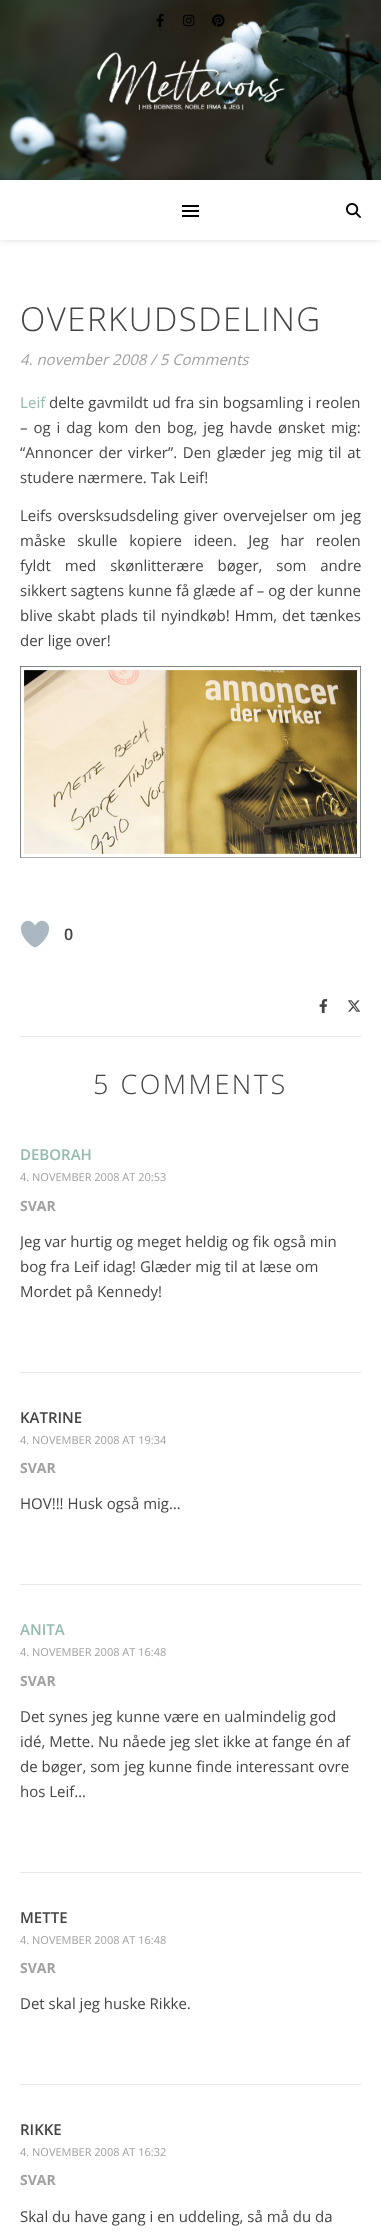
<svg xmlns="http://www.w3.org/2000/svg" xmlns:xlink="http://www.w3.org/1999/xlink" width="381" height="2232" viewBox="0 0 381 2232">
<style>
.cls-1{font:300 33px Open Sans;letter-spacing:1.5px;fill:#444444}
.cls-2{font:italic 15px Open Sans;fill:#a1a1a1}
.cls-3{font:15px Noto Sans;fill:#95bbb1}
.cls-4{font:15px Open Sans;fill:#95bbb1}
.cls-5{font:15px Open Sans;fill:#444444}
.cls-6{font:600 16px Open Sans;fill:#444444}
.cls-7{font:300 27px Open Sans;letter-spacing:2.5px;fill:#444444}
.cls-8{font:600 15px Open Sans;fill:#95bbb1}
.cls-9{font:11px Open Sans;fill:#a1a1a1}
.cls-10{font:bold 14px Open Sans;fill:#a1a1a1}
.cls-11{font:600 15px Open Sans;fill:#444444}
</style>
<defs>
<clipPath id="clip1"><path d="M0 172H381V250H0ZM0 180H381V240H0Z" clip-rule="evenodd"/></clipPath>
<clipPath id="clip2"><rect x="20" y="1144" width="341" height="173"/></clipPath>
</defs>
<rect width="100%" height="100%" fill="#ffffff"/>
<image xlink:href="image0.png" x="0" y="0" width="381" height="180"/>
<image xlink:href="image1.png" x="156" y="14" width="8" height="13"/>
<image xlink:href="image2.png" x="183" y="14" width="12" height="13"/>
<image xlink:href="image3.png" x="212" y="14" width="13" height="13"/>
<image xlink:href="image4.png" x="96" y="52" width="189" height="59"/>
<g clip-path="url(#clip1)">
<rect fill="#000000" fill-opacity="0.1" filter="blur(2.5px)" x="0" y="181" width="381" height="60"/>
</g>
<rect fill="#000000" x="182" y="205" width="17" height="2"/>
<rect fill="#000000" x="182" y="210" width="17" height="2"/>
<rect fill="#000000" x="182" y="215" width="17" height="2"/>
<image xlink:href="image5.png" x="346" y="203" width="15" height="15"/>
<image xlink:href="image6.png" x="20" y="666" width="341" height="192"/>
<image xlink:href="image7.png" x="20" y="920" width="30" height="28"/>
<rect fill="#e8e8e8" x="20" y="1036" width="341" height="1"/>
<image xlink:href="image8.png" x="319" y="999" width="9" height="14"/>
<image xlink:href="image9.png" x="347" y="1000" width="14" height="12"/>
<rect fill="#e8e8e8" x="20" y="1372" width="341" height="1"/>
<rect fill="#e8e8e8" x="20" y="1584" width="341" height="1"/>
<rect fill="#e8e8e8" x="20" y="1872" width="341" height="1"/>
<rect fill="#e8e8e8" x="20" y="2084" width="341" height="1"/>
<text class="cls-1" x="20" y="331">OVERKUDSDELING</text>
<text class="cls-2" x="20" y="365">4. november 2008 / 5 Comments</text>
<text class="cls-3" x="20" y="408">L</text>
<text class="cls-4" x="28" y="408">eif</text>
<text class="cls-5" x="49" y="408" word-spacing="0.25">delte gavmildt ud fra sin bogsamling i reolen</text>
<text class="cls-5"><tspan x="20" y="433" word-spacing="2">– og i dag kom den bog, jeg havde ønsket mig:</tspan><tspan x="20" y="458" word-spacing="1.75">“Annoncer der virker”. Den glæder jeg mig til at</tspan><tspan x="20" y="483">studere nærmere. Tak Leif!</tspan></text>
<text class="cls-5"><tspan x="20" y="521" word-spacing="1.25">Leifs oversksudsdeling giver overvejelser om jeg</tspan><tspan x="20" y="546" word-spacing="7.75">måske skulle kopiere ideen. Jeg har reolen</tspan><tspan x="20" y="571" word-spacing="10">fyldt med skønlitterære bøger, som andre</tspan><tspan x="20" y="596">sikkert sagtens kunne få glæde af – og der kunne</tspan><tspan x="20" y="621" word-spacing="1">blive skabt plads til nyindkøb! Hmm, det tænkes</tspan><tspan x="20" y="646">der lige over!</tspan></text>
<text class="cls-6" x="64" y="940">0</text>
<text class="cls-7" x="93" y="1094">5 COMMENTS</text>
<text class="cls-8" x="20" y="1160">DEBORAH</text>
<text class="cls-9" x="20" y="1181">4. NOVEMBER 2008 AT 20:53</text>
<text class="cls-10" x="20" y="1211">SVAR</text>
<g clip-path="url(#clip2)">
<text class="cls-5" x="20" y="1247">Jeg var hurtig og meget heldig og fik også min</text>
</g>
<text class="cls-5"><tspan x="20" y="1272">bog fra Leif idag! Glæder mig til at læse om</tspan><tspan x="20" y="1297">Mordet på Kennedy!</tspan></text>
<text class="cls-11" x="20" y="1423">KATRINE</text>
<text class="cls-9" x="20" y="1444">4. NOVEMBER 2008 AT 19:34</text>
<text class="cls-10" x="20" y="1473">SVAR</text>
<text class="cls-5" x="20" y="1509">HOV!!! Husk også mig…</text>
<text class="cls-8" x="20" y="1635">ANITA</text>
<text class="cls-9" x="20" y="1656">4. NOVEMBER 2008 AT 16:48</text>
<text class="cls-10" x="20" y="1686">SVAR</text>
<text class="cls-5"><tspan x="20" y="1722">Det synes jeg kunne være en ualmindelig god</tspan><tspan x="20" y="1747">idé, Mette. Nu nåede jeg slet ikke at fange én af</tspan><tspan x="20" y="1772">de bøger, som jeg kunne finde interessant ovre</tspan><tspan x="20" y="1797">hos Leif…</tspan></text>
<text class="cls-11" x="20" y="1923">METTE</text>
<text class="cls-9" x="20" y="1944">4. NOVEMBER 2008 AT 16:48</text>
<text class="cls-10" x="20" y="1973">SVAR</text>
<text class="cls-5" x="20" y="2009">Det skal jeg huske Rikke.</text>
<text class="cls-11" x="20" y="2135">RIKKE</text>
<text class="cls-9" x="20" y="2156">4. NOVEMBER 2008 AT 16:32</text>
<text class="cls-10" x="20" y="2185">SVAR</text>
<text class="cls-5" x="20" y="2222">Skal du have gang i en uddeling, så må du da</text>
</svg>
